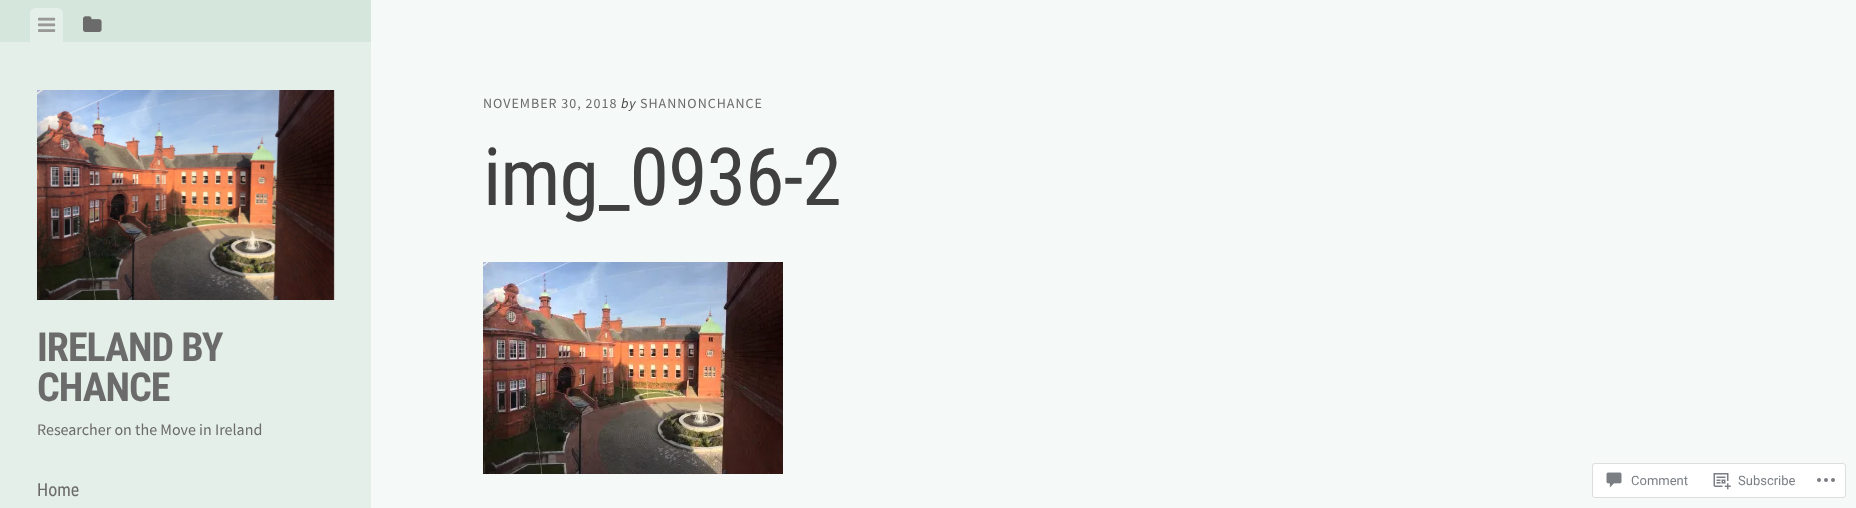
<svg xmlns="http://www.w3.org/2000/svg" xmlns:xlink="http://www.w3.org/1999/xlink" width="1856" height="508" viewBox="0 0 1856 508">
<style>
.cls-1{font:14px Source Sans Pro;letter-spacing:1px;fill:#6b6b6b}
.cls-2{font:italic 14px Source Sans Pro;letter-spacing:1px;fill:#404040}
.cls-3{font:80px Roboto Condensed;letter-spacing:-1px;fill:#404040}
.cls-4{font:bold 40px Roboto Condensed;letter-spacing:-1px;fill:#6b6b6b}
.cls-5{font:16px Source Sans Pro;fill:#6b6b6b}
.cls-6{font:18px Roboto Condensed;fill:#6b6b6b}
.cls-7{font:13px Roboto;fill:#7b7f84}
</style>
<rect width="100%" height="100%" fill="#f5f9f7"/>
<image xlink:href="image0.png" x="483" y="262" width="300" height="212"/>
<rect fill="#e5efea" x="0" y="42" width="371" height="466"/>
<rect fill="#d5e6dd" x="0" y="0" width="371" height="42"/>
<path fill="#e5efea" d="M36 8H57C60.5 8 63 10.5 63 14V42H30V14C30 10.5 32.5 8 36 8Z"/>
<image xlink:href="image1.png" x="38" y="17" width="18" height="15"/>
<image xlink:href="image2.png" x="83" y="16" width="19" height="16"/>
<image xlink:href="image3.png" x="37" y="90" width="298" height="210"/>
<rect fill="#ffffff" stroke="#dddddf" x="1592.5" y="463.5" width="253" height="34" rx="2.5"/>
<image xlink:href="image4.png" x="1606" y="472" width="16" height="16"/>
<image xlink:href="image5.png" x="1713" y="473" width="18" height="17"/>
<image xlink:href="image6.png" x="1817" y="478" width="18" height="4"/>
<text class="cls-1" x="483" y="108">NOVEMBER 30, 2018</text>
<text class="cls-2" x="621" y="108">by</text>
<text class="cls-1" x="640" y="108">SHANNONCHANCE</text>
<text class="cls-3" x="483" y="205">img_0936-2</text>
<text class="cls-4"><tspan x="37" y="361">IRELAND BY</tspan><tspan x="37" y="401">CHANCE</tspan></text>
<text class="cls-5" x="37" y="435">Researcher on the Move in Ireland</text>
<text class="cls-6" x="37" y="496">Home</text>
<text class="cls-7" x="1631" y="485">Comment</text>
<text class="cls-7" x="1738" y="485">Subscribe</text>
</svg>
